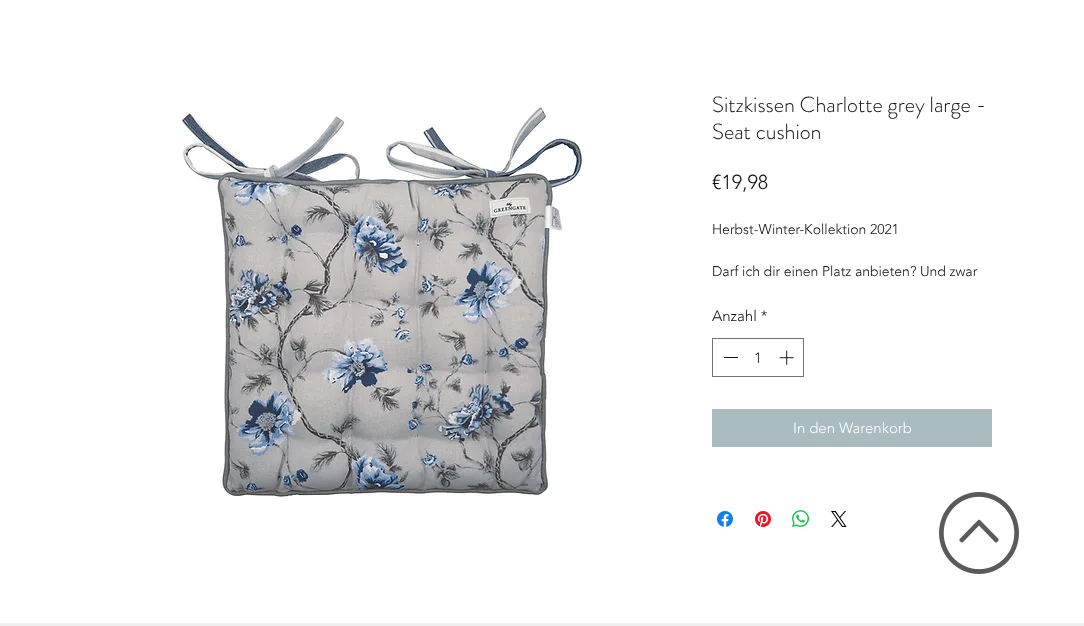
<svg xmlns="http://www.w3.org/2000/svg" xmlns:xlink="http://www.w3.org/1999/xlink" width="1084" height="626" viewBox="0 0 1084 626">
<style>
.cls-1{font:300 22px 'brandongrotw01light';fill:#121212}
.cls-2{font:300 20px 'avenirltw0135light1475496';fill:#121212}
.cls-3{font:300 14px 'avenirltw0135light1475496';fill:#121212}
.cls-4{font:300 15px 'avenirltw0135light1475496';fill:#121212}
.cls-5{font:300 15px 'avenirltw0135light1475496';fill:#ffffff}
</style>
<rect width="100%" height="100%" fill="#ffffff"/>
<image xlink:href="image0.png" x="180" y="107" width="404" height="393"/>
<rect fill="none" stroke="#717171" x="712.5" y="338.5" width="91" height="38"/>
<rect fill="#121212" x="724" y="357" width="14" height="1"/>
<image xlink:href="image1.png" x="779" y="350" width="15" height="15"/>
<rect fill="#aabcbf" x="712" y="409" width="280" height="38"/>
<image xlink:href="image2.png" x="717" y="511" width="16" height="16"/>
<image xlink:href="image3.png" x="755" y="511" width="16" height="16"/>
<image xlink:href="image4.png" x="792" y="510" width="17" height="17"/>
<image xlink:href="image5.png" x="831" y="511" width="16" height="16"/>
<image xlink:href="image6.png" x="939" y="492" width="80" height="82"/>
<rect fill="#f0f0f0" x="0" y="623" width="1084" height="3"/>
<text class="cls-1"><tspan x="712" y="112">Sitzkissen Charlotte grey large -</tspan><tspan x="712" y="139">Seat cushion</tspan></text>
<text class="cls-2" x="712" y="189">€19,98</text>
<text class="cls-3" x="712" y="234">Herbst-Winter-Kollektion 2021</text>
<text class="cls-3" x="712" y="276">Darf ich dir einen Platz anbieten? Und zwar</text>
<text class="cls-4" x="712" y="321">Anzahl *</text>
<text class="cls-4" x="754" y="363">1</text>
<text class="cls-5" x="793" y="433">In den Warenkorb</text>
</svg>
